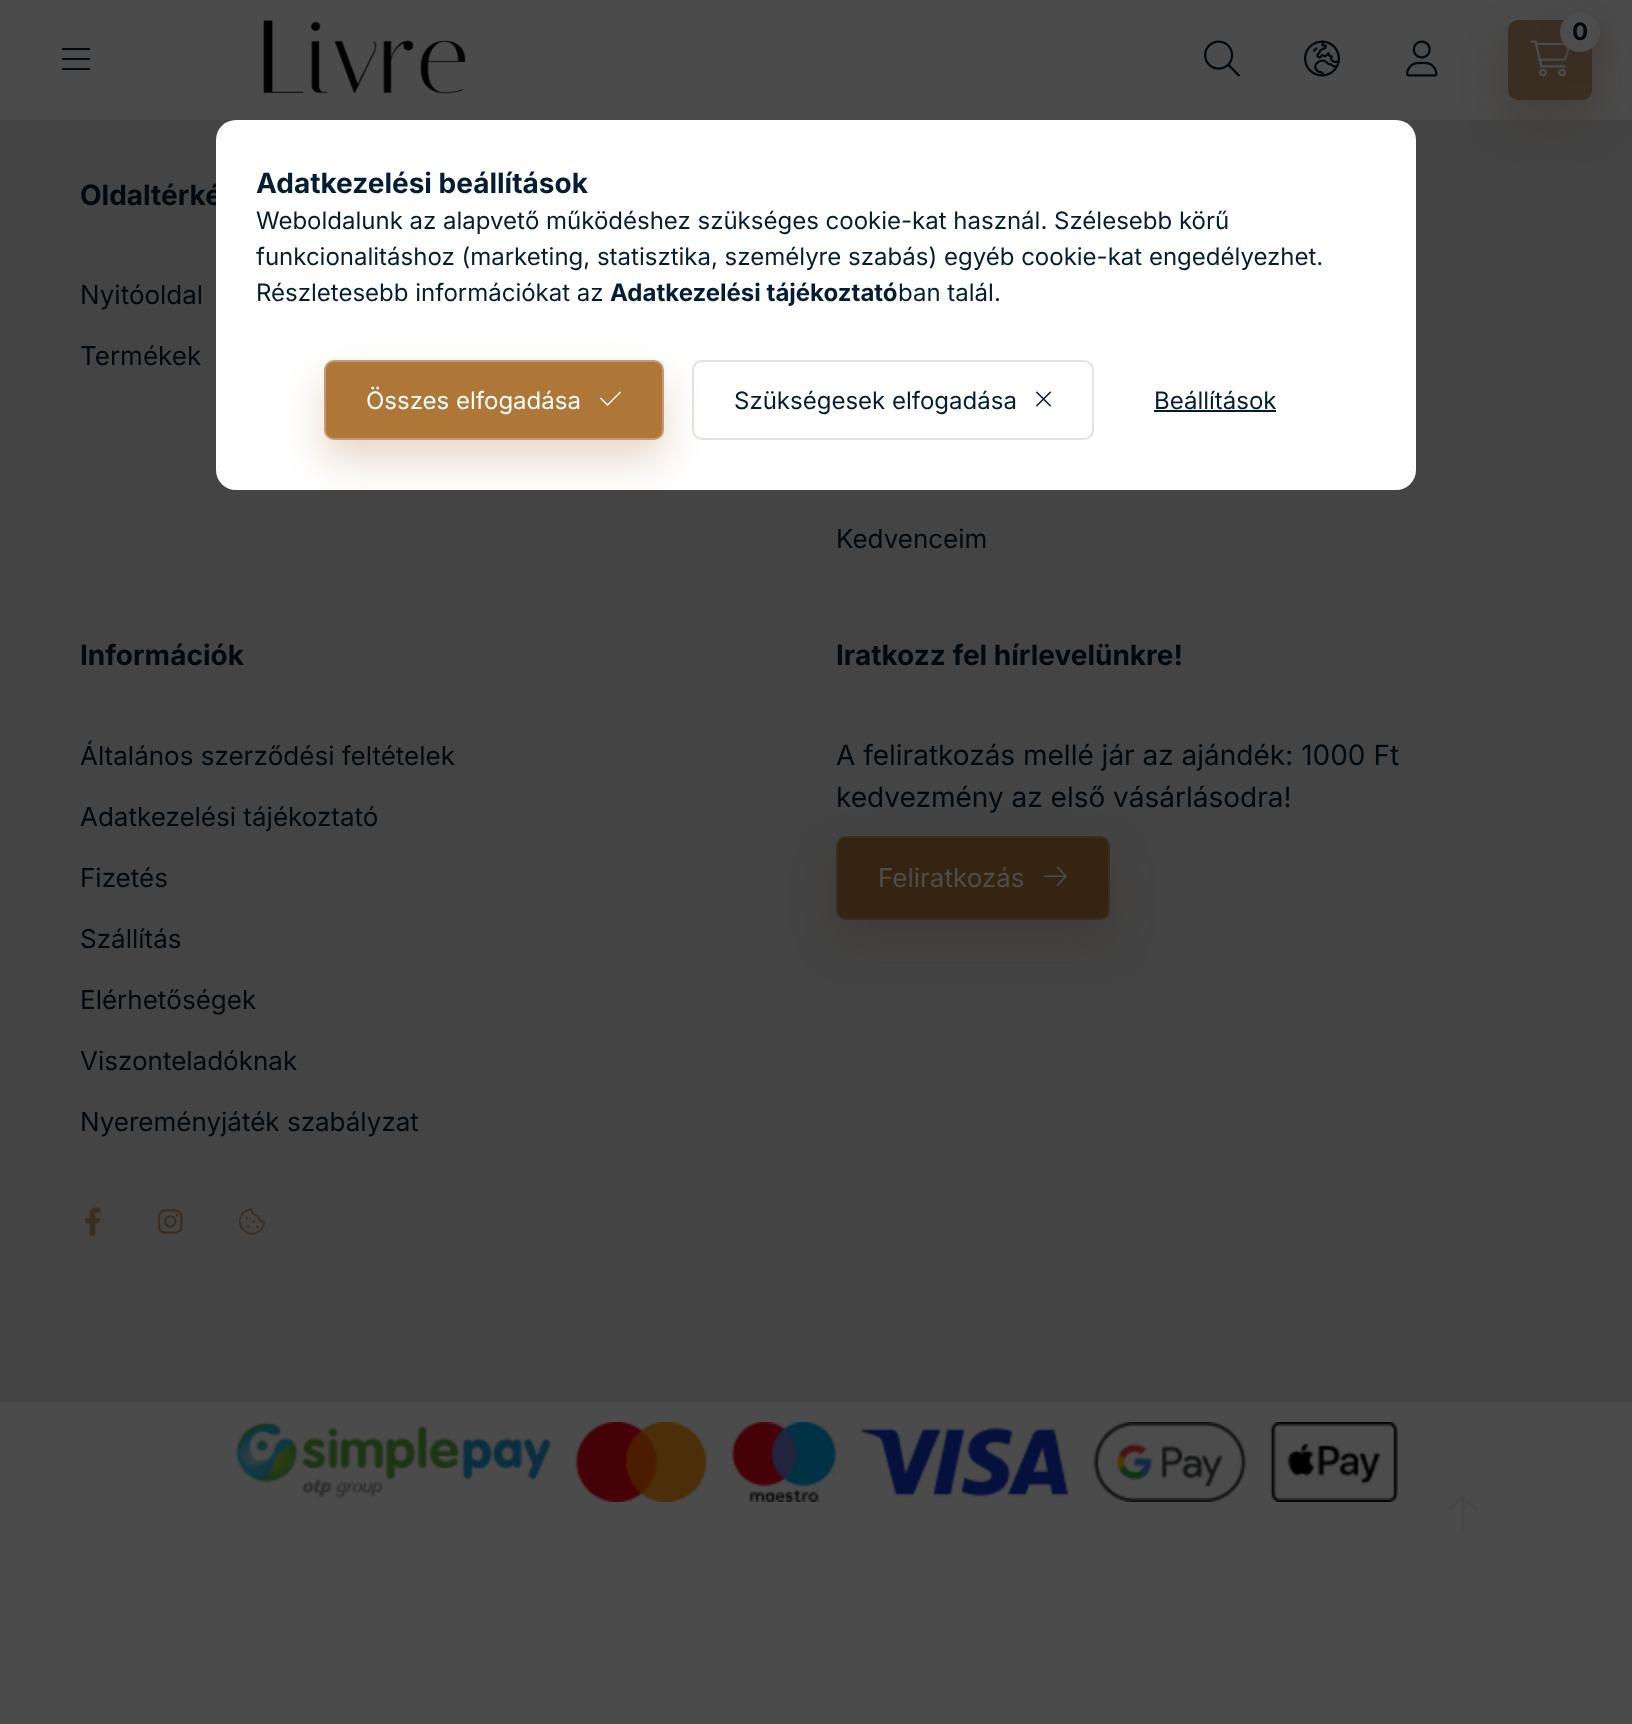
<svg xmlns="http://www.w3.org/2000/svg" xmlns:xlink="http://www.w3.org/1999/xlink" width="1632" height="1724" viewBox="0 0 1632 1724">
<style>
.cls-1{font:bold 24px Inter;fill:#02090f}
.cls-2{font:bold 28px Inter;fill:#02090f}
.cls-3{font:26px Inter;fill:#02090f}
.cls-4{font:28px Inter;fill:#02090f}
.cls-5{font:26px Inter;fill:#4d4d4d}
.cls-6{font:bold 28px Inter;fill:#051d33}
.cls-7{font:24px Inter;fill:#051d33}
.cls-8{font:bold 24px Inter;fill:#051d33}
.cls-9{font:24px Inter;fill:#ffffff}
</style>
<defs>
<clipPath id="clip1"><rect x="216" y="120" width="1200" height="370" rx="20"/></clipPath>
</defs>
<rect width="100%" height="100%" fill="#4b4b4b"/>
<rect fill="#02090f" x="62" y="48" width="28" height="2"/>
<rect fill="#02090f" x="62" y="58" width="28" height="2"/>
<rect fill="#02090f" x="62" y="68" width="28" height="2"/>
<image xlink:href="image0.png" x="263" y="20" width="203" height="74"/>
<rect fill="#444444" x="0" y="120" width="1632" height="1282"/>
<rect fill="#3a2e23" fill-opacity="0.4" filter="blur(20px)" x="1508" y="40" width="84" height="80" rx="10"/>
<rect fill="#3a2e23" x="1508" y="20" width="84" height="80" rx="10"/>
<image xlink:href="image1.png" x="1530" y="40" width="40" height="37"/>
<rect fill="#3a2e23" fill-opacity="0.4" filter="blur(10px)" x="1560" y="22" width="40" height="40" rx="20"/>
<circle fill="#4d4d4d" cx="1580" cy="32" r="20"/>
<image xlink:href="image2.png" x="1204" y="40" width="36" height="37"/>
<image xlink:href="image3.png" x="1304" y="40" width="36" height="37"/>
<image xlink:href="image4.png" x="1406" y="40" width="32" height="37"/>
<image xlink:href="image5.png" x="85" y="1207" width="16" height="29"/>
<image xlink:href="image6.png" x="158" y="1209" width="25" height="25"/>
<image xlink:href="image7.png" x="238" y="1208" width="28" height="27"/>
<rect fill="#3a2e23" fill-opacity="0.4" filter="blur(20px)" x="836" y="856" width="274" height="84" rx="10"/>
<rect fill="#342411" stroke="#3a2e23" stroke-width="2" x="837" y="837" width="272" height="82" rx="9"/>
<image xlink:href="image8.png" x="1044" y="866" width="23" height="20"/>
<image xlink:href="image9.png" x="235" y="1422" width="1163" height="80"/>
<image xlink:href="image12.png" x="1448" y="1495" width="30" height="36"/>
<text class="cls-1" x="1572" y="40">0</text>
<text class="cls-2" x="80" y="205">Oldaltérké</text>
<text class="cls-3" x="80" y="304">Nyitóoldal</text>
<text class="cls-3" x="80" y="365">Termékek</text>
<text class="cls-3" x="836" y="548">Kedvenceim</text>
<text class="cls-2" x="80" y="665">Információk</text>
<text class="cls-3" x="80" y="765">Általános szerződési feltételek</text>
<text class="cls-3" x="80" y="826">Adatkezelési tájékoztató</text>
<text class="cls-3" x="80" y="887">Fizetés</text>
<text class="cls-3" x="80" y="948">Szállítás</text>
<text class="cls-3" x="80" y="1009">Elérhetőségek</text>
<text class="cls-3" x="80" y="1070">Viszonteladóknak</text>
<text class="cls-3" x="80" y="1131">Nyereményjáték szabályzat</text>
<text class="cls-2" x="836" y="665">Iratkozz fel hírlevelünkre!</text>
<text class="cls-4"><tspan x="836" y="765">A feliratkozás mellé jár az ajándék: 1000 Ft</tspan><tspan x="836" y="807">kedvezmény az első vásárlásodra!</tspan></text>
<text class="cls-5" x="878" y="887">Feliratkozás</text>
<rect fill="#ffffff" x="216" y="120" width="1200" height="370" rx="20"/>
<text class="cls-6" x="256" y="193">Adatkezelési beállítások</text>
<text class="cls-7"><tspan x="256" y="229">Weboldalunk az alapvető működéshez szükséges cookie-kat használ. Szélesebb körű</tspan><tspan x="256" y="265">funkcionalitáshoz (marketing, statisztika, személyre szabás) egyéb cookie-kat engedélyezhet.</tspan><tspan x="256" y="301">Részletesebb információkat az</tspan></text>
<text class="cls-8" x="610" y="301">Adatkezelési tájékoztató</text>
<text class="cls-7" x="898" y="301">ban talál.</text>
<g clip-path="url(#clip1)">
<rect fill="#c29a74" fill-opacity="0.4" filter="blur(20px)" x="324" y="380" width="340" height="80" rx="10"/>
</g>
<rect fill="#ae7737" stroke="#c29a74" stroke-width="2" x="325" y="361" width="338" height="78" rx="9"/>
<text class="cls-9" x="366" y="409">Összes elfogadása</text>
<image xlink:href="image10.png" x="600" y="391" width="21" height="15"/>
<rect fill="none" stroke="#e1e1e1" stroke-width="2" x="693" y="361" width="400" height="78" rx="9"/>
<text class="cls-7" x="734" y="409">Szükségesek elfogadása</text>
<image xlink:href="image11.png" x="1036" y="391" width="15" height="16"/>
<text class="cls-7" x="1154" y="409">Beállítások</text>
<rect fill="#051d33" x="1154" y="410" width="122" height="2"/>
</svg>
